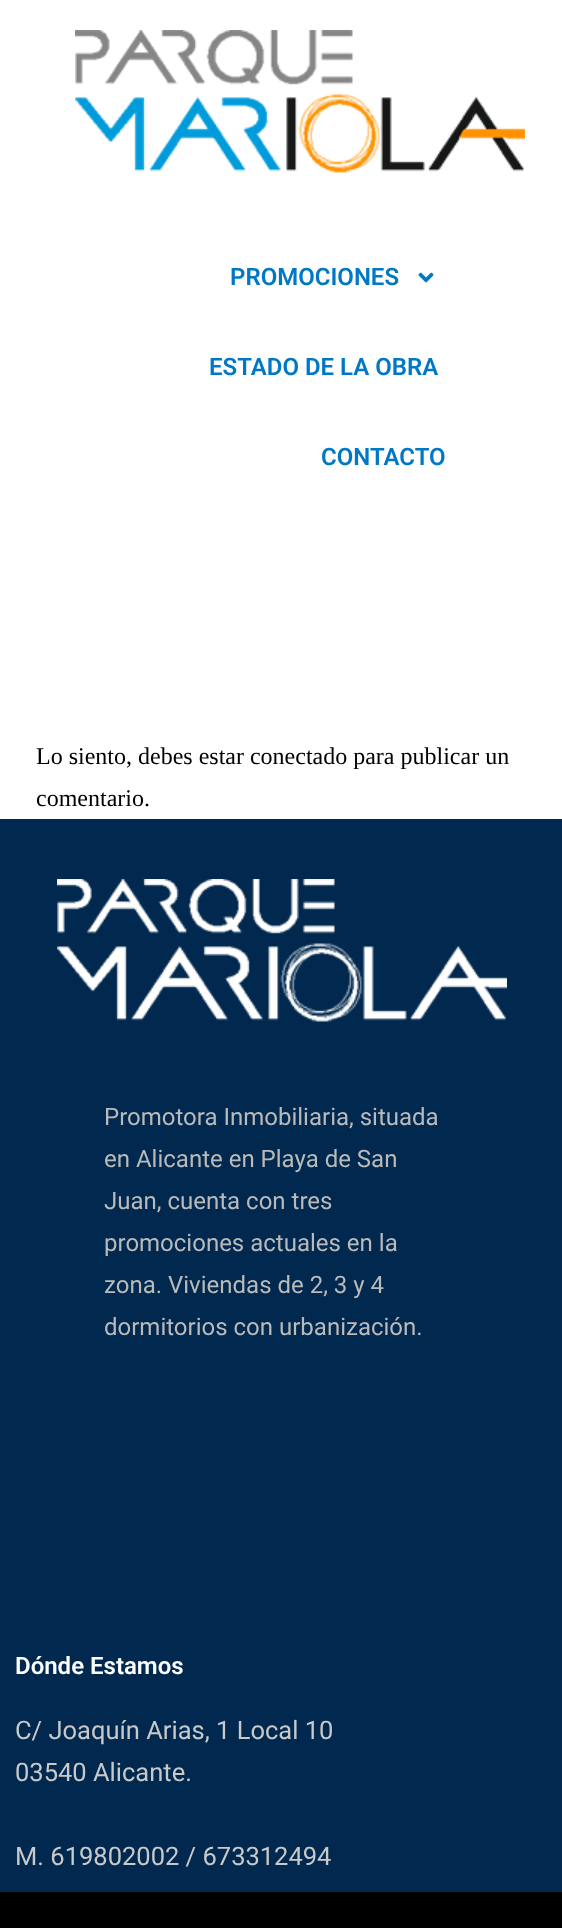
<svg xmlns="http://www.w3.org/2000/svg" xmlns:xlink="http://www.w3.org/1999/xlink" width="562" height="1928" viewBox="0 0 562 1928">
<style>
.cls-1{font:600 24px Roboto;fill:#0178c5}
.cls-2{font:24px Liberation Serif;fill:#000000}
.cls-3{font:24px Roboto;fill:#bababa}
.cls-4{font:600 24px Roboto;fill:#ffffff}
.cls-5{font:25.5px Roboto;fill:#c9c9c9}
</style>
<rect width="100%" height="100%" fill="#ffffff"/>
<image xlink:href="image0.png" x="75" y="30" width="450" height="143"/>
<image xlink:href="image1.png" x="418" y="272" width="16" height="11"/>
<rect fill="#01284e" x="0" y="819" width="562" height="1073"/>
<image xlink:href="image2.png" x="57" y="879" width="450" height="143"/>
<rect fill="#000000" x="0" y="1892" width="562" height="36"/>
<text class="cls-1" x="230" y="285">PROMOCIONES</text>
<text class="cls-1" x="209" y="375">ESTADO DE LA OBRA</text>
<text class="cls-1" x="321" y="465">CONTACTO</text>
<text class="cls-2"><tspan x="36" y="764">Lo siento, debes estar conectado para publicar un</tspan><tspan x="36" y="806">comentario.</tspan></text>
<text class="cls-3"><tspan x="104" y="1125">Promotora Inmobiliaria, situada</tspan><tspan x="104" y="1167">en Alicante en Playa de San</tspan><tspan x="104" y="1209">Juan, cuenta con tres</tspan><tspan x="104" y="1251">promociones actuales en la</tspan><tspan x="104" y="1293">zona. Viviendas de 2, 3 y 4</tspan><tspan x="104" y="1335">dormitorios con urbanización.</tspan></text>
<text class="cls-4" x="15" y="1674">Dónde Estamos</text>
<text class="cls-5"><tspan x="15" y="1739">C/ Joaquín Arias, 1 Local 10</tspan><tspan x="15" y="1781">03540 Alicante.</tspan></text>
<text class="cls-5" x="15" y="1865">M. 619802002 / 673312494</text>
</svg>
